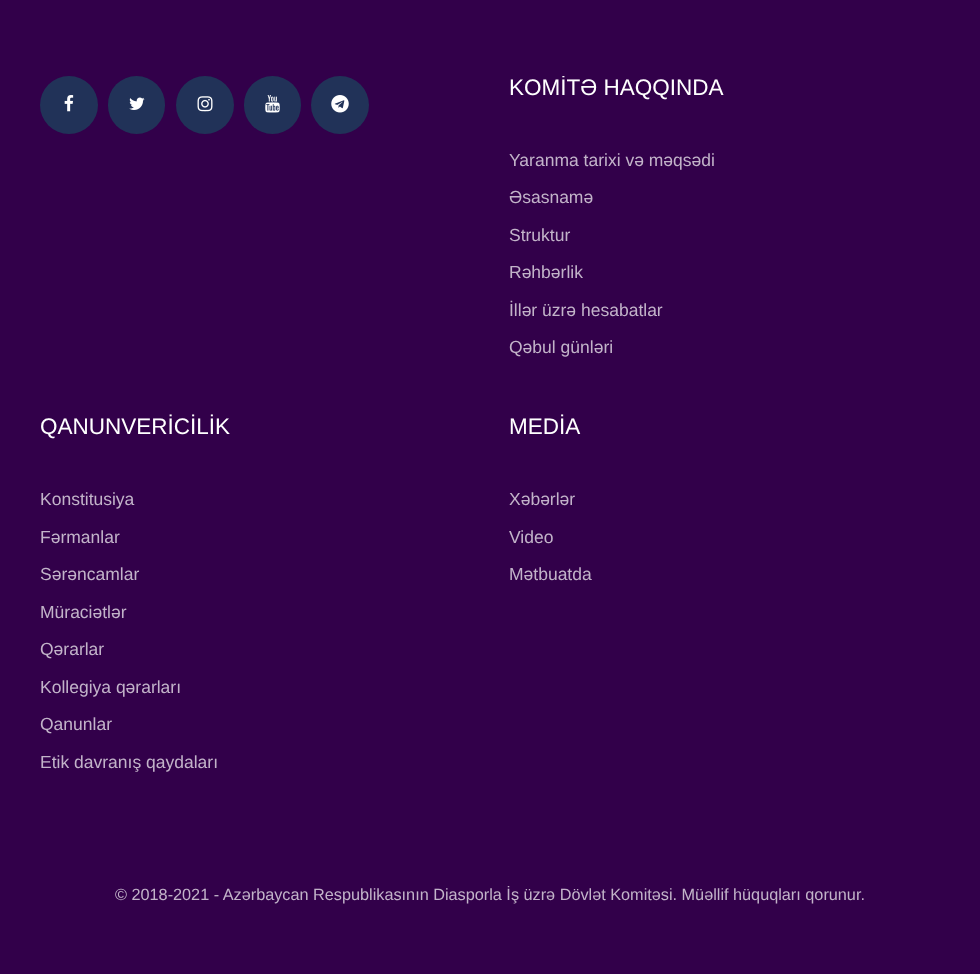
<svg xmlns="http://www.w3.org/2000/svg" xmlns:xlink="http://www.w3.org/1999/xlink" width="980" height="974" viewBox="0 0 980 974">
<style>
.cls-1{font:22.5px Liberation Sans;fill:#ffffff}
.cls-2{font:17.5px Liberation Sans;fill:#c2b3c9}
.cls-3{font:16.25px Liberation Sans;fill:#c2b3c9}
</style>
<defs>
<clipPath id="clip1"><rect x="0" y="76" width="980" height="754"/></clipPath>
</defs>
<rect width="100%" height="100%" fill="#32004a"/>
<circle fill="#213258" cx="69" cy="105" r="29"/>
<image xlink:href="image0.png" x="64" y="95" width="10" height="17"/>
<rect fill="#213258" x="108" y="76" width="57" height="58" rx="28.5"/>
<image xlink:href="image1.png" x="129" y="97" width="16" height="13"/>
<circle fill="#213258" cx="205" cy="105" r="29"/>
<image xlink:href="image2.png" x="197" y="96" width="16" height="16"/>
<rect fill="#213258" x="244" y="76" width="57" height="58" rx="28.5"/>
<image xlink:href="image3.png" x="265" y="95" width="15" height="18"/>
<circle fill="#213258" cx="340" cy="105" r="29"/>
<image xlink:href="image4.png" x="331" y="95" width="18" height="18"/>
<g clip-path="url(#clip1)">
<text class="cls-1" x="509" y="95">KOMİTƏ HAQQINDA</text>
</g>
<text class="cls-2" x="509" y="166">Yaranma tarixi və məqsədi</text>
<text class="cls-2" x="509" y="203">Əsasnamə</text>
<text class="cls-2" x="509" y="241">Struktur</text>
<text class="cls-2" x="509" y="278">Rəhbərlik</text>
<text class="cls-2" x="509" y="316">İllər üzrə hesabatlar</text>
<text class="cls-2" x="509" y="353">Qəbul günləri</text>
<text class="cls-1" x="40" y="434">QANUNVERİCİLİK</text>
<text class="cls-2" x="40" y="505">Konstitusiya</text>
<text class="cls-2" x="40" y="543">Fərmanlar</text>
<text class="cls-2" x="40" y="580">Sərəncamlar</text>
<text class="cls-2" x="40" y="618">Müraciətlər</text>
<text class="cls-2" x="40" y="655">Qərarlar</text>
<text class="cls-2" x="40" y="693">Kollegiya qərarları</text>
<text class="cls-2" x="40" y="730">Qanunlar</text>
<text class="cls-2" x="40" y="768">Etik davranış qaydaları</text>
<text class="cls-1" x="509" y="434">MEDİA</text>
<text class="cls-2" x="509" y="505">Xəbərlər</text>
<text class="cls-2" x="509" y="543">Video</text>
<text class="cls-2" x="509" y="580">Mətbuatda</text>
<text class="cls-3" x="115" y="900">© 2018-2021 - Azərbaycan Respublikasının Diasporla İş üzrə Dövlət Komitəsi. Müəllif hüquqları qorunur.</text>
</svg>
